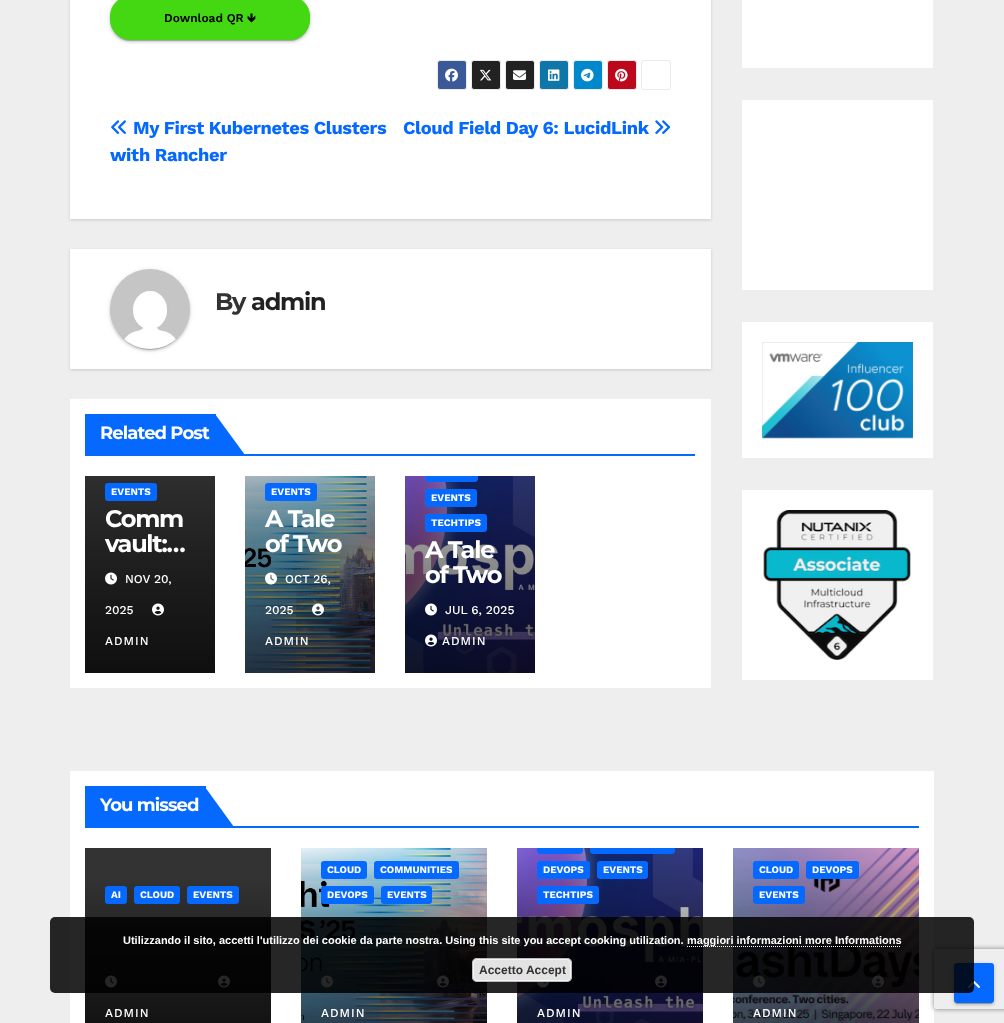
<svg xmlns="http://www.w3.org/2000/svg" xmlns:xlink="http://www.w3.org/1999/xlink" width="1004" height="1023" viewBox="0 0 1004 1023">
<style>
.cls-1{font:600 12px Work Sans;fill:#000000}
.cls-2{font:bold 12px 'Noto Sans Symbols 2';fill:#000000}
.cls-3{font:bold 18.25px Work Sans;letter-spacing:-0.35px;fill:#0669ff}
.cls-4{font:bold 24px Montserrat;letter-spacing:-1.25px;fill:#333333}
.cls-5{font:bold 24px Montserrat;letter-spacing:-1.25px;fill:#212121}
.cls-6{font:bold 18px Montserrat;letter-spacing:-0.9px;fill:#ffffff}
.cls-7{font:bold 10px Work Sans;fill:#ffffff}
.cls-8{font:bold 24px Montserrat;letter-spacing:-1.25px;fill:#ffffff}
.cls-9{font:500 12px Work Sans;fill:#ffffff}
.cls-10{font:500 12px Work Sans;letter-spacing:1px;fill:#ffffff}
.cls-11{font:bold 11px Liberation Sans;fill:#ffffff}
.cls-12{font:bold 12px Liberation Sans;fill:#333333}
</style>
<defs>
<linearGradient id="g1" gradientUnits="userSpaceOnUse" x1="150" y1="448" x2="150" y2="673"><stop offset="0" stop-color="#333333"/><stop offset="0.5" stop-color="#1f1f1f"/><stop offset="1" stop-color="#0f0f0f"/></linearGradient>
<linearGradient id="g2" gradientUnits="userSpaceOnUse" x1="178" y1="876" x2="178" y2="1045"><stop offset="0" stop-color="#333333"/><stop offset="0.5" stop-color="#1f1f1f"/><stop offset="1" stop-color="#0f0f0f"/></linearGradient>
<clipPath id="clip1"><path d="M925 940H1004V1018H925ZM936 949H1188C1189 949 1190 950 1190 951V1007C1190 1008 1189 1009 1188 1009H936C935 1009 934 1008 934 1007V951C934 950 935 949 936 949Z" clip-rule="evenodd"/></clipPath>
</defs>
<rect width="100%" height="100%" fill="#eeeeee"/>
<rect fill="#000000" fill-opacity="0.15" filter="blur(1.5px)" x="70" y="-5" width="641" height="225"/>
<rect fill="#ffffff" x="70" y="0" width="641" height="219"/>
<rect fill="#000000" fill-opacity="0.12" filter="blur(2.5px)" x="110" y="-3" width="200" height="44" rx="20"/>
<rect fill="#000000" fill-opacity="0.2" filter="blur(0.5px)" x="112" y="1" width="196" height="40" rx="18"/>
<rect fill="#000000" fill-opacity="0.14" filter="blur(1px)" x="110" y="-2" width="200" height="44" rx="20"/>
<rect fill="#44d813" stroke="#44d813" x="110.5" y="-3.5" width="199" height="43" rx="19.5"/>
<rect fill="#3b5998" stroke="#ebebeb" x="437.5" y="60.5" width="29" height="29" rx="2.5"/>
<image xlink:href="image0.png" x="445" y="68" width="13" height="14"/>
<rect fill="#222222" stroke="#ebebeb" x="471.5" y="60.5" width="29" height="29" rx="2.5"/>
<image xlink:href="image1.png" x="479" y="69" width="13" height="12"/>
<rect fill="#222222" stroke="#ebebeb" x="505.5" y="60.5" width="29" height="29" rx="2.5"/>
<image xlink:href="image2.png" x="513" y="70" width="13" height="10"/>
<rect fill="#0e76a8" stroke="#ebebeb" x="539.5" y="60.5" width="29" height="29" rx="2.5"/>
<image xlink:href="image3.png" x="548" y="69" width="12" height="12"/>
<rect fill="#0088cc" stroke="#ebebeb" x="573.5" y="60.5" width="29" height="29" rx="2.5"/>
<image xlink:href="image4.png" x="581" y="68" width="13" height="14"/>
<rect fill="#bd081c" stroke="#ebebeb" x="607.5" y="60.5" width="29" height="29" rx="2.5"/>
<image xlink:href="image5.png" x="615" y="68" width="13" height="14"/>
<rect fill="none" stroke="#ebebeb" x="641.5" y="60.5" width="29" height="29" rx="2.5"/>
<image xlink:href="image6.png" x="111" y="120" width="15" height="14"/>
<image xlink:href="image7.png" x="655" y="120" width="16" height="14"/>
<rect fill="#000000" fill-opacity="0.15" filter="blur(1.5px)" x="70" y="250" width="641" height="120"/>
<rect fill="#ffffff" x="70" y="249" width="641" height="120"/>
<rect fill="#000000" fill-opacity="0.12" filter="blur(2.5px)" x="110" y="270" width="80" height="80" rx="40"/>
<rect fill="#000000" fill-opacity="0.2" filter="blur(0.5px)" x="112" y="274" width="76" height="76" rx="38"/>
<rect fill="#000000" fill-opacity="0.14" filter="blur(1px)" x="110" y="271" width="80" height="80" rx="40"/>
<image xlink:href="image8.png" x="110" y="269" width="80" height="80"/>
<rect fill="#ffffff" x="70" y="399" width="641" height="289"/>
<rect fill="#0669ff" x="85" y="454" width="610" height="2"/>
<rect fill="#0669ff" x="85" y="414" width="131" height="40"/>
<path fill="#0669ff" d="M215 414L245 455H215Z"/>
<rect fill="url(#g1)" x="85" y="476" width="130" height="197"/>
<rect fill="#0669ff" x="105" y="483" width="52" height="18" rx="3"/>
<image xlink:href="image9.png" x="105" y="572" width="12" height="13"/>
<image xlink:href="image10.png" x="152" y="603" width="12" height="13"/>
<image xlink:href="image11.png" x="245" y="476" width="130" height="197"/>
<rect fill="#0669ff" x="265" y="483" width="52" height="18" rx="3"/>
<image xlink:href="image12.png" x="265" y="572" width="12" height="13"/>
<image xlink:href="image13.png" x="312" y="603" width="12" height="13"/>
<image xlink:href="image14.png" x="405" y="476" width="130" height="197"/>
<path fill="#0669ff" d="M425 476H478V479C478 480.5 476.5 482 475 482H428C426.5 482 425 480.5 425 479Z"/>
<rect fill="#0669ff" x="425" y="489" width="52" height="18" rx="3"/>
<rect fill="#0669ff" x="425" y="514" width="62" height="18" rx="3"/>
<image xlink:href="image15.png" x="425" y="603" width="12" height="13"/>
<image xlink:href="image16.png" x="425" y="634" width="12" height="13"/>
<rect fill="#ffffff" x="742" y="0" width="191" height="68"/>
<rect fill="#ffffff" x="742" y="100" width="191" height="190"/>
<rect fill="#ffffff" x="742" y="322" width="191" height="136"/>
<image xlink:href="image17.png" x="762" y="342" width="151" height="97"/>
<rect fill="#ffffff" x="742" y="490" width="191" height="190"/>
<image xlink:href="image18.png" x="763" y="510" width="148" height="150"/>
<rect fill="#ffffff" x="70" y="771" width="864" height="252"/>
<rect fill="#0669ff" x="85" y="826" width="834" height="2"/>
<rect fill="#0669ff" x="85" y="786" width="121" height="40"/>
<path fill="#0669ff" d="M234 827H205V787Z"/>
<rect fill="#333333" x="85" y="848" width="186" height="28"/>
<rect fill="url(#g2)" x="85" y="876" width="186" height="147"/>
<rect fill="#0669ff" x="105" y="886" width="22" height="18" rx="3"/>
<rect fill="#0669ff" x="134" y="886" width="46" height="18" rx="3"/>
<rect fill="#0669ff" x="187" y="886" width="52" height="18" rx="3"/>
<image xlink:href="image19.png" x="105" y="975" width="12" height="13"/>
<image xlink:href="image20.png" x="218" y="975" width="12" height="13"/>
<image xlink:href="image21.png" x="301" y="848" width="186" height="175"/>
<rect fill="#0669ff" x="321" y="861" width="46" height="18" rx="3"/>
<rect fill="#0669ff" x="374" y="861" width="85" height="18" rx="3"/>
<rect fill="#0669ff" x="321" y="886" width="53" height="18" rx="3"/>
<rect fill="#0669ff" x="381" y="886" width="51" height="18" rx="3"/>
<image xlink:href="image22.png" x="321" y="975" width="12" height="13"/>
<image xlink:href="image23.png" x="437" y="975" width="12" height="13"/>
<image xlink:href="image24.png" x="517" y="848" width="186" height="175"/>
<path fill="#0669ff" d="M537 848H583V851C583 852.5 581.5 854 580 854H540C538.5 854 537 852.5 537 851Z"/>
<path fill="#0669ff" d="M590 848H675V851C675 852.5 673.5 854 672 854H593C591.5 854 590 852.5 590 851Z"/>
<rect fill="#0669ff" x="537" y="861" width="53" height="18" rx="3"/>
<rect fill="#0669ff" x="597" y="861" width="51" height="18" rx="3"/>
<rect fill="#0669ff" x="537" y="886" width="62" height="18" rx="3"/>
<image xlink:href="image25.png" x="537" y="982" width="12" height="6"/>
<image xlink:href="image26.png" x="655" y="975" width="12" height="13"/>
<image xlink:href="image27.png" x="733" y="848" width="186" height="175"/>
<rect fill="#0669ff" x="753" y="861" width="46" height="18" rx="3"/>
<rect fill="#0669ff" x="806" y="861" width="53" height="18" rx="3"/>
<rect fill="#0669ff" x="753" y="886" width="52" height="18" rx="3"/>
<image xlink:href="image28.png" x="753" y="975" width="12" height="13"/>
<image xlink:href="image29.png" x="872" y="975" width="12" height="13"/>
<g clip-path="url(#clip1)">
<rect fill="#808080" filter="blur(2.5px)" x="934" y="949" width="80" height="60" rx="2"/>
</g>
<rect fill="#000000" fill-opacity="0.12" filter="blur(2.5px)" x="954" y="964" width="40" height="40" rx="3"/>
<rect fill="#000000" fill-opacity="0.2" filter="blur(0.5px)" x="956" y="968" width="36" height="36" rx="1"/>
<rect fill="#000000" fill-opacity="0.14" filter="blur(1px)" x="954" y="965" width="40" height="40" rx="3"/>
<rect fill="#0669ff" stroke="#0669ff" stroke-width="2" x="955" y="964" width="38" height="38" rx="2"/>
<image xlink:href="image30.png" x="968" y="981" width="12" height="7"/>
<rect fill="#000000" fill-opacity="0.85" x="50" y="917" width="924" height="76" rx="5"/>
<path fill="none" stroke="#ffffff" stroke-dasharray="1 1" d="M687 946.5H901"/>
<rect fill="#e3e3e3" x="472" y="958" width="100" height="24" rx="5"/>
<rect fill="none" stroke="#f6f6f6" x="473.5" y="959.5" width="97" height="21" rx="3.5"/>
<rect fill="none" stroke="#bbbbbb" x="472.5" y="958.5" width="99" height="23" rx="4.5"/>
<text class="cls-1" x="164" y="22">Download QR</text>
<text class="cls-2" x="247" y="22">🡻</text>
<text class="cls-3" x="133" y="134">My First Kubernetes Clusters</text>
<text class="cls-3" x="110" y="161">with Rancher</text>
<text class="cls-3" x="403" y="134">Cloud Field Day 6: LucidLink</text>
<text class="cls-4" x="215" y="310">By</text>
<text class="cls-5" x="251" y="310">admin</text>
<text class="cls-6" x="100" y="439">Related Post</text>
<text class="cls-7" x="111" y="495">EVENTS</text>
<text class="cls-8"><tspan x="105" y="527">Comm</tspan><tspan x="105" y="552">vault:…</tspan></text>
<text class="cls-9" x="125" y="583">NOV 20,</text>
<text class="cls-9" x="105" y="614">2025</text>
<text class="cls-10" x="105" y="645">ADMIN</text>
<text class="cls-7" x="271" y="495">EVENTS</text>
<text class="cls-8"><tspan x="265" y="527">A Tale</tspan><tspan x="265" y="552">of Two</tspan></text>
<text class="cls-9" x="285" y="583">OCT 26,</text>
<text class="cls-9" x="265" y="614">2025</text>
<text class="cls-10" x="265" y="645">ADMIN</text>
<text class="cls-7" x="431" y="501">EVENTS</text>
<text class="cls-7" x="431" y="526">TECHTIPS</text>
<text class="cls-8"><tspan x="425" y="558">A Tale</tspan><tspan x="425" y="583">of Two</tspan></text>
<text class="cls-9" x="445" y="614">JUL 6, 2025</text>
<text class="cls-10" x="442" y="645">ADMIN</text>
<text class="cls-6" x="100" y="811">You missed</text>
<text class="cls-7" x="111" y="898">AI</text>
<text class="cls-7" x="140" y="898">CLOUD</text>
<text class="cls-7" x="193" y="898">EVENTS</text>
<text class="cls-10" x="105" y="1017">ADMIN</text>
<text class="cls-7" x="327" y="873">CLOUD</text>
<text class="cls-7" x="380" y="873">COMMUNITIES</text>
<text class="cls-7" x="327" y="898">DEVOPS</text>
<text class="cls-7" x="387" y="898">EVENTS</text>
<text class="cls-10" x="321" y="1017">ADMIN</text>
<text class="cls-7" x="543" y="873">DEVOPS</text>
<text class="cls-7" x="603" y="873">EVENTS</text>
<text class="cls-7" x="543" y="898">TECHTIPS</text>
<text class="cls-10" x="537" y="1017">ADMIN</text>
<text class="cls-7" x="759" y="873">CLOUD</text>
<text class="cls-7" x="812" y="873">DEVOPS</text>
<text class="cls-7" x="759" y="898">EVENTS</text>
<text class="cls-10" x="753" y="1017">ADMIN</text>
<text class="cls-11" x="123" y="944">Utilizzando il sito, accetti l'utilizzo dei cookie da parte nostra. Using this site you accept cooking utilization.</text>
<text class="cls-11" x="687" y="944">maggiori informazioni more Informations</text>
<text class="cls-12" x="479" y="974">Accetto Accept</text>
</svg>
